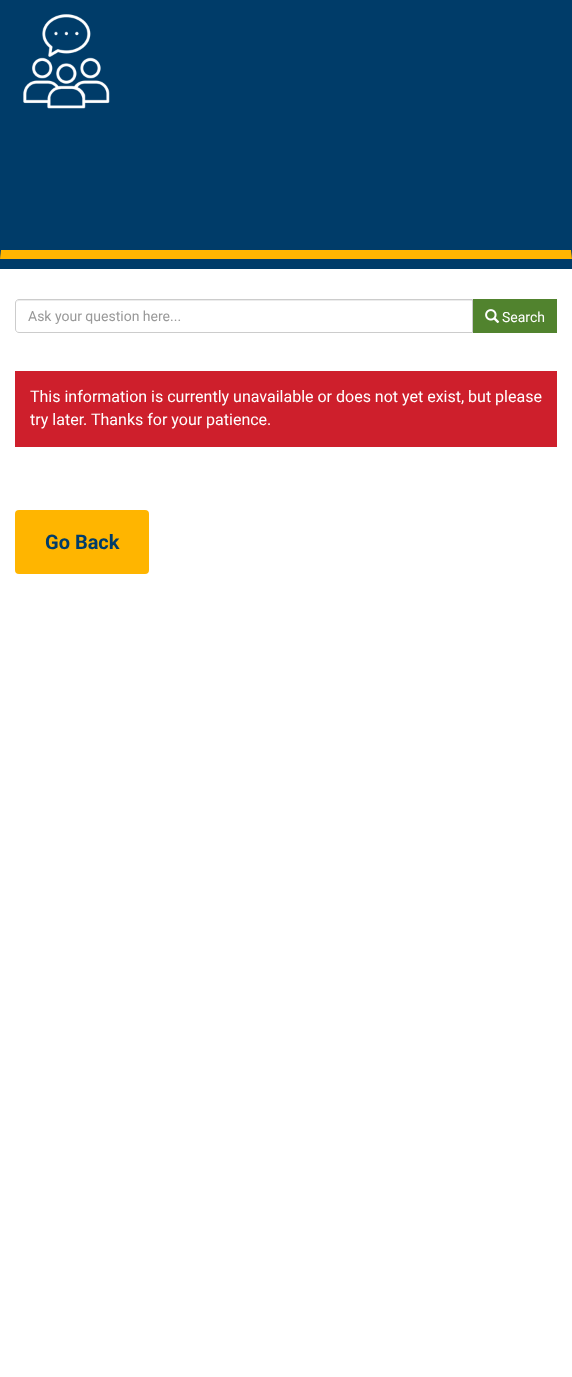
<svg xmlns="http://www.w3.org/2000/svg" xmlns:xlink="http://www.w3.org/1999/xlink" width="572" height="1377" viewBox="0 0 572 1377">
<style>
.cls-1{font:14px Roboto;fill:#999999}
.cls-2{font:14px Roboto;fill:#ffffff}
.cls-3{font:16px Roboto;fill:#ffffff}
.cls-4{font:bold 20px Roboto;fill:#003c69}
</style>
<rect width="100%" height="100%" fill="#ffffff"/>
<rect fill="#003c69" x="0" y="0" width="572" height="269"/>
<path fill="#ffb500" d="M572 259H0L1 250H571Z"/>
<image xlink:href="image0.png" x="23" y="14" width="87" height="95"/>
<path fill="#ececec" d="M19 301H472V300H19C17 300 16 302 16 304C16 302 17 301 19 301Z"/>
<path fill="none" stroke="#cccccc" d="M19 299.5H472.5V332.5H19C17 332.5 15.5 331 15.5 329V303C15.5 301 17 299.5 19 299.5Z"/>
<rect fill="#51832e" x="473" y="299" width="84" height="34"/>
<image xlink:href="image1.png" x="485" y="309" width="15" height="14"/>
<rect fill="#ce1f2c" x="15" y="371" width="542" height="76"/>
<rect fill="#ffb500" x="15" y="510" width="134" height="64" rx="4"/>
<text class="cls-1" x="28" y="321">Ask your question here...</text>
<text class="cls-2" x="502" y="322">Search</text>
<text class="cls-3"><tspan x="30" y="402">This information is currently unavailable or does not yet exist, but please</tspan><tspan x="30" y="425">try later. Thanks for your patience.</tspan></text>
<text class="cls-4" x="45" y="549">Go Back</text>
</svg>
